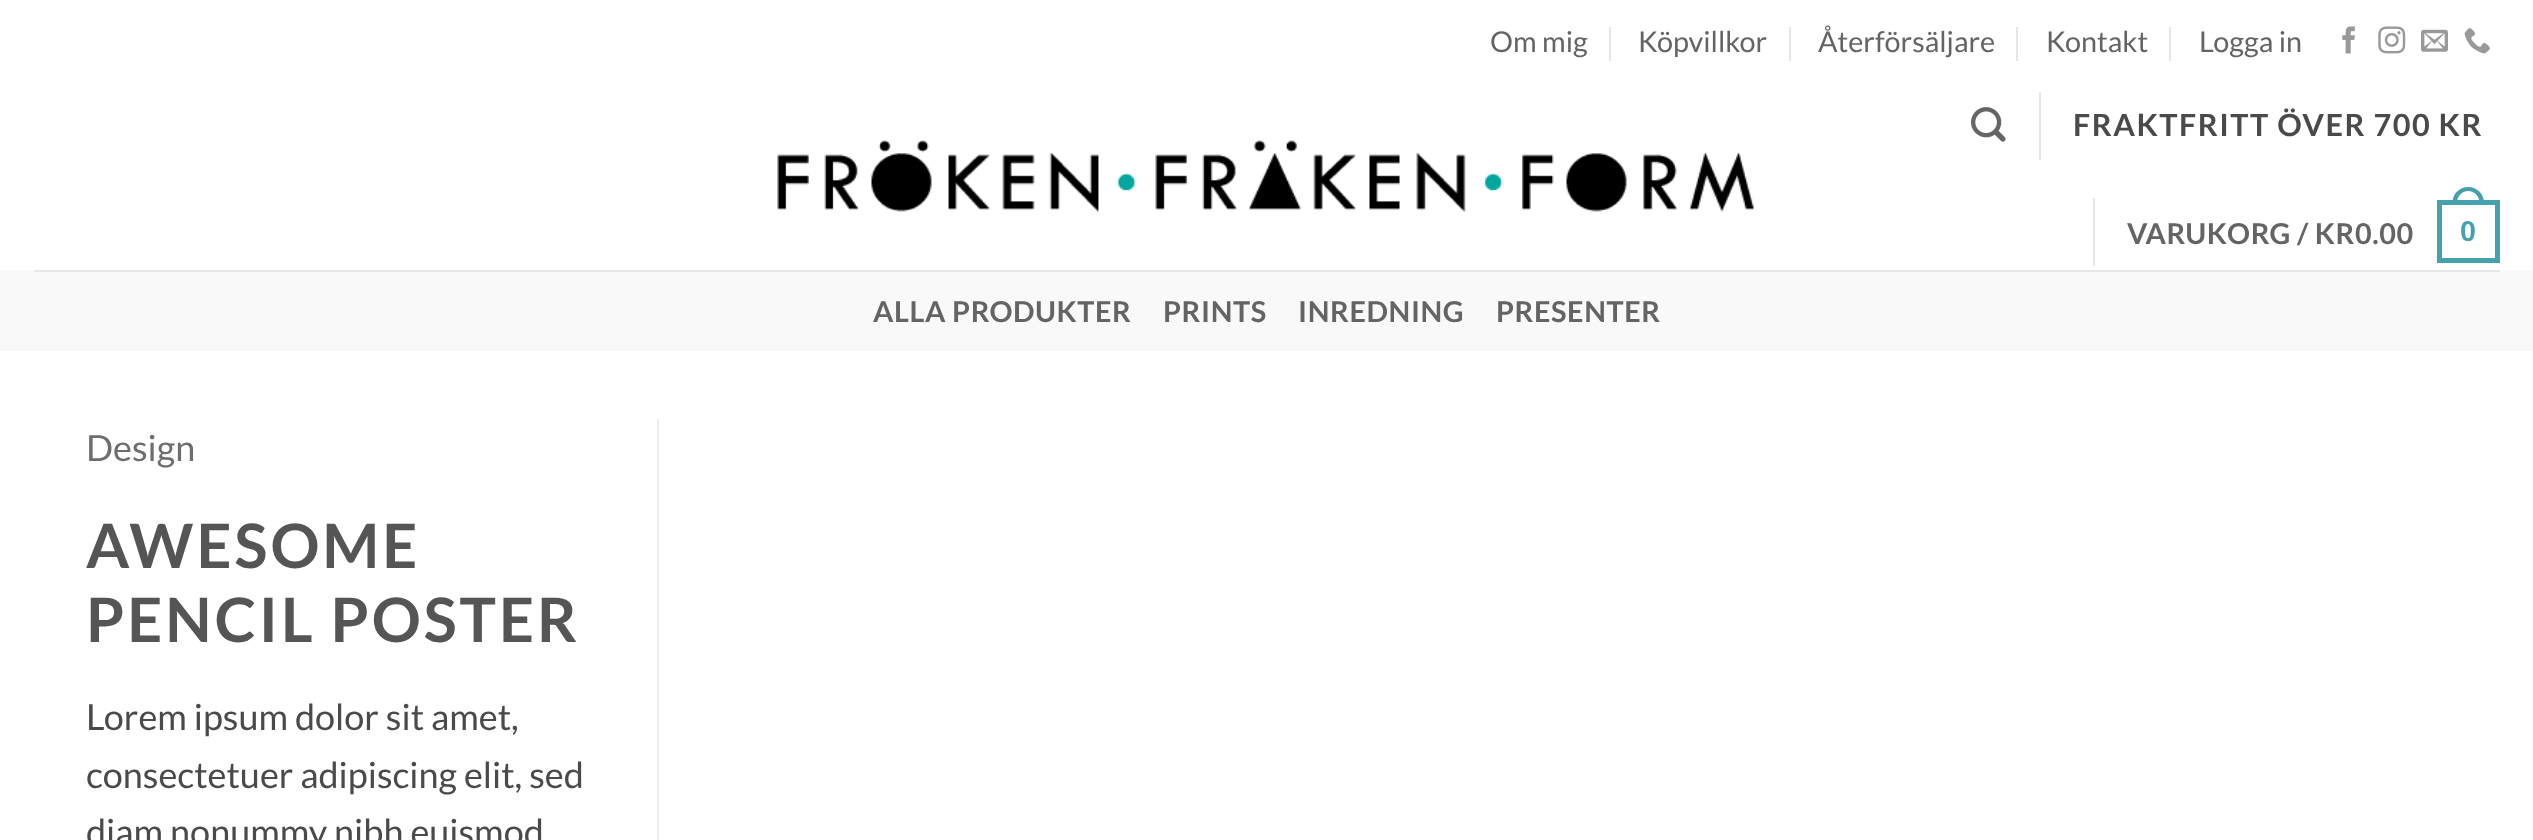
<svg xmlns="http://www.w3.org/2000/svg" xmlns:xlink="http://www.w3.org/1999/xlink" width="2533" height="840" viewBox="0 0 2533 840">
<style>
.cls-1{font:28.75px Lato;fill:#646464}
.cls-2{font:bold 30.6px Lato;letter-spacing:1.5px;fill:#4a4a4a}
.cls-3{font:bold 28.75px Lato;letter-spacing:0.6px;fill:#646464}
.cls-4{font:bold 28.75px Liberation Sans;letter-spacing:0.6px;fill:#46a1ad}
.cls-5{font:36px Lato;fill:#6e6e6e}
.cls-6{font:bold 61.25px Lato;letter-spacing:3px;fill:#555555}
.cls-7{font:36px Lato;fill:#4a4a4a}
</style>
<rect width="100%" height="100%" fill="#ffffff"/>
<rect fill="#e6e6e6" x="1609" y="27" width="2" height="34"/>
<rect fill="#e6e6e6" x="1789" y="27" width="2" height="34"/>
<rect fill="#e6e6e6" x="2016" y="27" width="2" height="34"/>
<rect fill="#e6e6e6" x="2169" y="27" width="2" height="34"/>
<image xlink:href="image0.png" x="2342" y="26" width="13" height="28"/>
<image xlink:href="image1.png" x="2378" y="26" width="28" height="28"/>
<image xlink:href="image2.png" x="2421" y="29" width="27" height="23"/>
<image xlink:href="image3.png" x="2464" y="28" width="26" height="26"/>
<image xlink:href="image4.png" x="777" y="140" width="977" height="72"/>
<image xlink:href="image5.png" x="1971" y="107" width="35" height="35"/>
<rect fill="#e6e6e6" x="2039" y="92" width="2" height="68"/>
<rect fill="#e6e6e6" x="2093" y="198" width="2" height="68"/>
<rect fill="none" stroke="#46a1ad" stroke-width="5" x="2439.5" y="202.5" width="58" height="58"/>
<path fill="#46a1ad" fill-rule="evenodd" d="M2468 187C2477 187 2484 194 2484 202.5V205H2452.5V202.5C2452.5 194 2459.5 187 2468 187ZM2468 191C2474.5 191 2479.5 196.5 2479.5 202.5V205H2457V202.5C2457 196.5 2462 191 2468 191Z"/>
<rect fill="#f9f9f9" x="0" y="270" width="2533" height="81"/>
<rect fill="#e7e7e7" x="34" y="270" width="2466" height="2"/>
<rect fill="#ececec" x="657" y="419" width="2" height="421"/>
<text class="cls-1" x="1490" y="52">Om mig</text>
<text class="cls-1" x="1638" y="52">Köpvillkor</text>
<text class="cls-1" x="1818" y="52">Återförsäljare</text>
<text class="cls-1" x="2046" y="52">Kontakt</text>
<text class="cls-1" x="2199" y="52">Logga in</text>
<text class="cls-2" x="2073" y="136">FRAKTFRITT ÖVER 700 KR</text>
<text class="cls-3" x="2127" y="244">VARUKORG / KR0.00</text>
<text class="cls-4" x="2460" y="241">0</text>
<text class="cls-3" x="873" y="322">ALLA PRODUKTER</text>
<text class="cls-3" x="1163" y="322">PRINTS</text>
<text class="cls-3" x="1298" y="322">INREDNING</text>
<text class="cls-3" x="1496" y="322">PRESENTER</text>
<text class="cls-5" x="86" y="461">Design</text>
<text class="cls-6"><tspan x="86" y="568">AWESOME</tspan><tspan x="86" y="642">PENCIL POSTER</tspan></text>
<text class="cls-7"><tspan x="86" y="730">Lorem ipsum dolor sit amet,</tspan><tspan x="86" y="788">consectetuer adipiscing elit, sed</tspan><tspan x="86" y="845">diam nonummy nibh euismod</tspan></text>
</svg>
